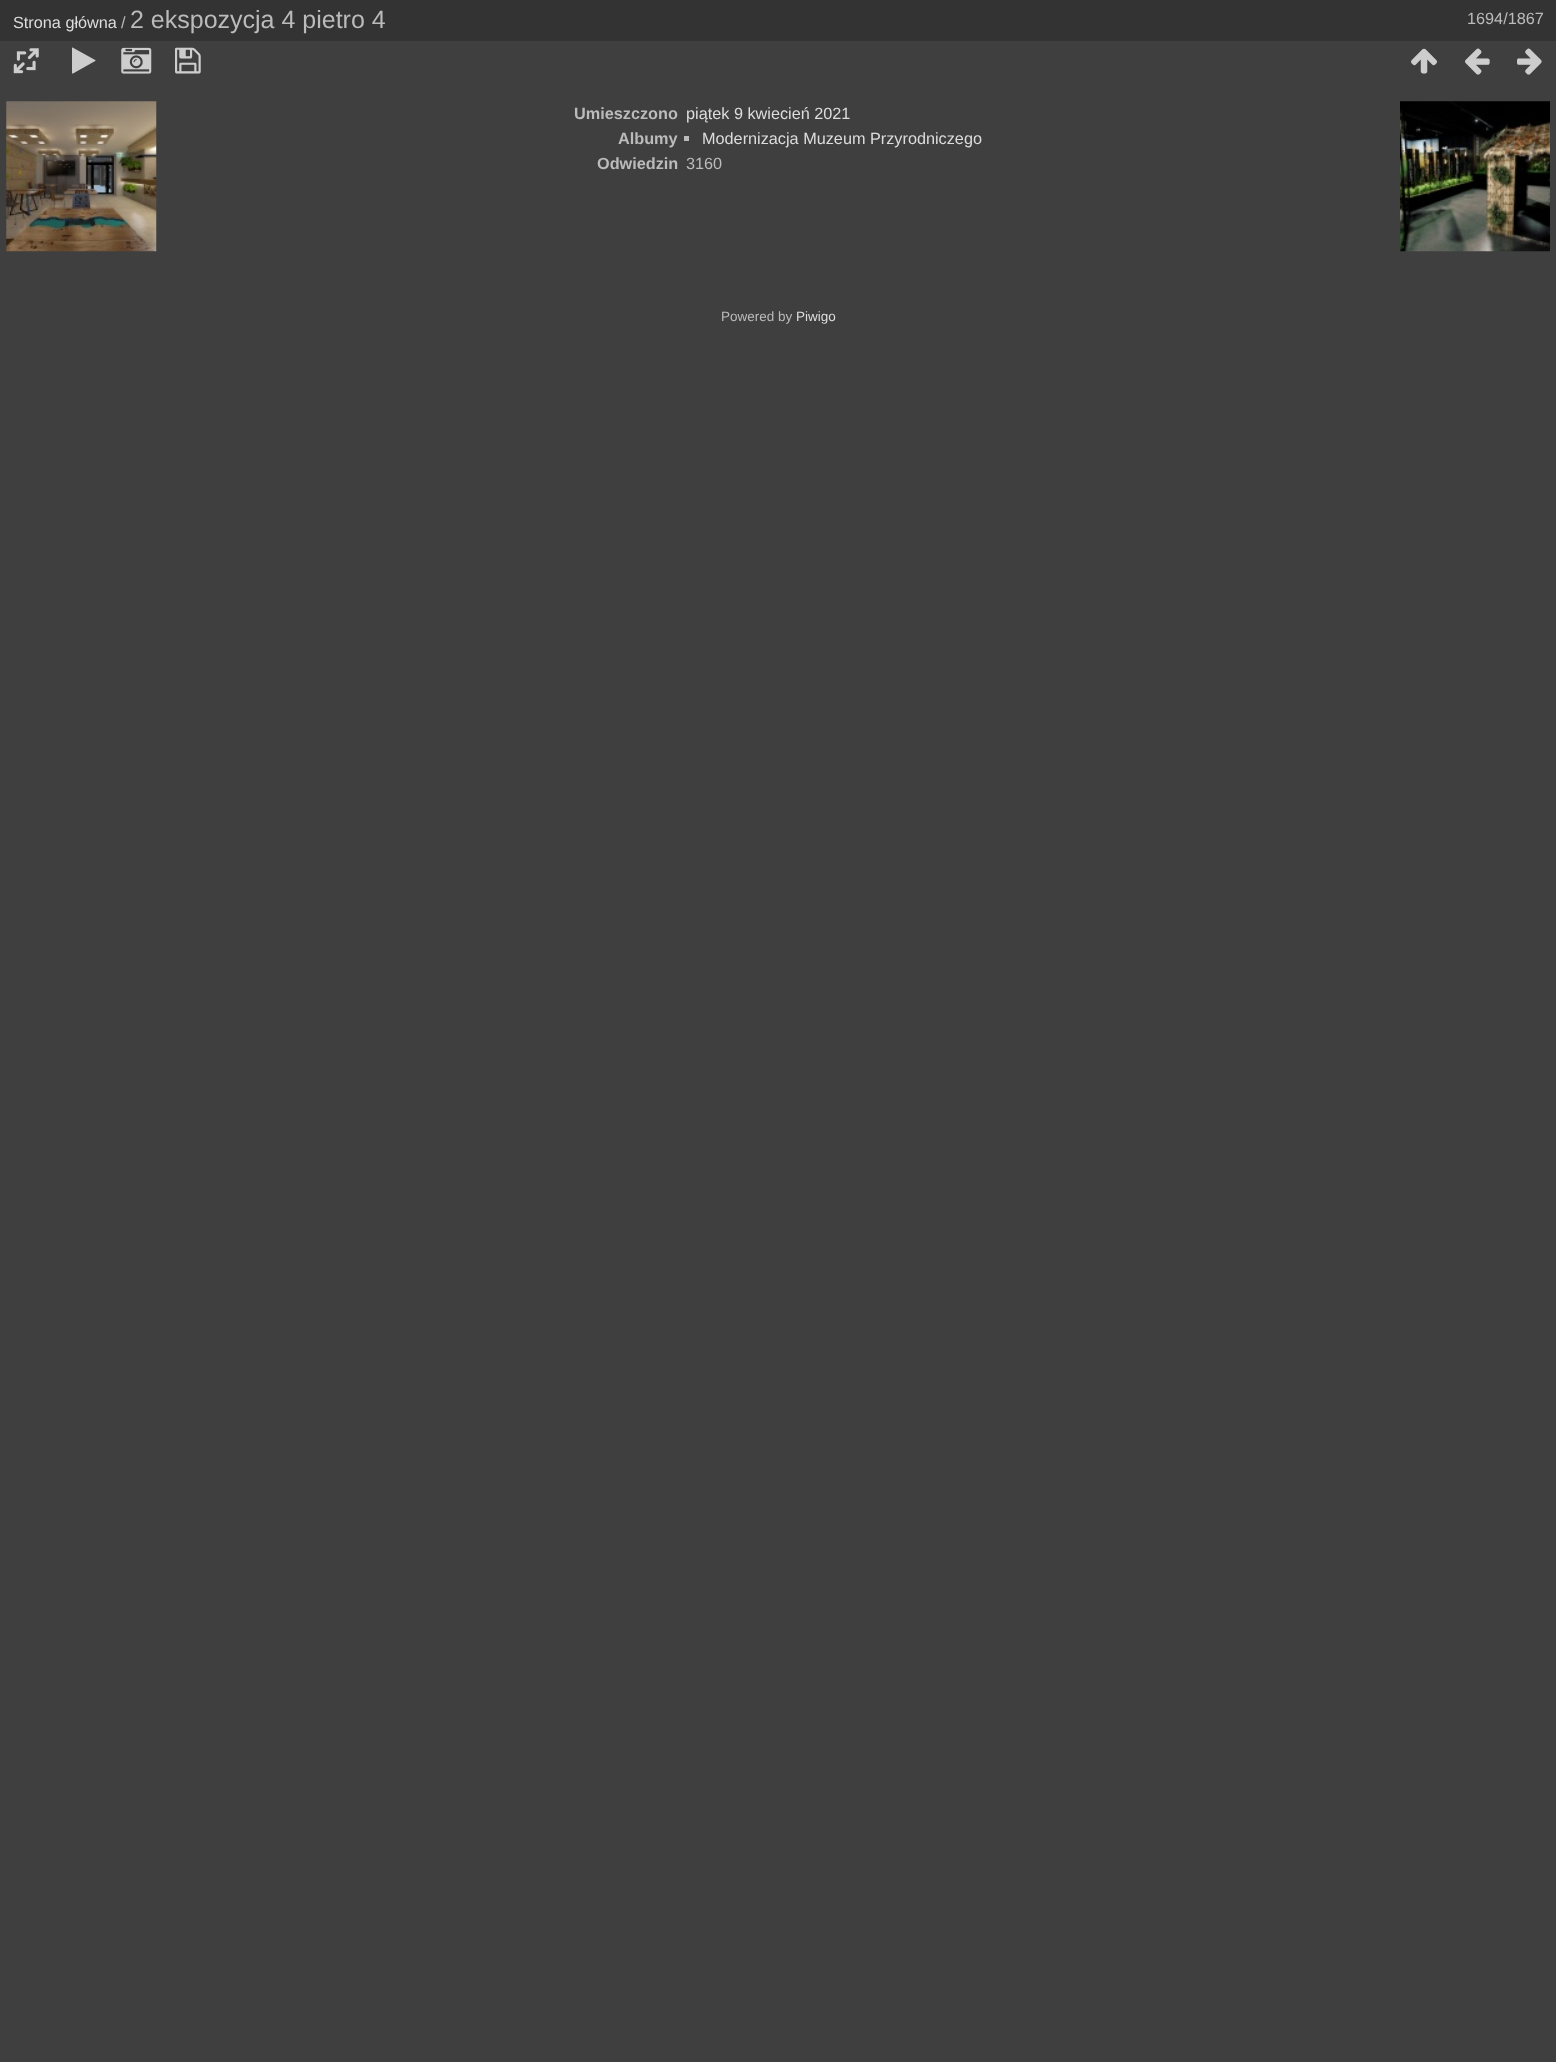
<svg xmlns="http://www.w3.org/2000/svg" xmlns:xlink="http://www.w3.org/1999/xlink" width="1556" height="2062" viewBox="0 0 1556 2062">
<style>
.cls-1{font:16.25px Liberation Sans;fill:#dddddd}
.cls-2{font:16.25px Liberation Sans;fill:#bbbbbb}
.cls-3{font:25px Liberation Sans;fill:#bbbbbb}
.cls-4{font:30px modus;fill:#cdcdcd}
.cls-5{font:bold 16.25px Liberation Sans;fill:#bbbbbb}
.cls-6{font:13.5px Liberation Sans;fill:#bbbbbb}
.cls-7{font:13.5px Liberation Sans;fill:#dddddd}
</style>
<rect width="100%" height="100%" fill="#3f3f3f"/>
<rect fill="#333333" x="0" y="0" width="1556" height="41"/>
<image xlink:href="image0.png" x="13" y="48" width="26" height="26"/>
<image xlink:href="image1.png" x="121" y="47" width="31" height="27"/>
<image xlink:href="image2.png" x="6" y="101" width="151" height="151"/>
<image xlink:href="image3.png" x="1400" y="101" width="150" height="151"/>
<rect fill="#bbbbbb" x="684" y="136" width="5" height="5"/>
<text class="cls-1" x="13" y="28">Strona główna</text>
<text class="cls-2" x="121" y="28">/</text>
<text class="cls-3" x="130" y="28">2 ekspozycja 4 pietro 4</text>
<text class="cls-2" x="1467" y="24">1694/1867</text>
<text class="cls-4" x="72" y="71">▶</text>
<text class="cls-4" x="175" y="71">💾</text>
<text class="cls-4" x="1411" y="71">↑</text>
<text class="cls-4" x="1465" y="71">←</text>
<text class="cls-4" x="1517" y="71">→</text>
<text class="cls-5" x="574" y="119">Umieszczono</text>
<text class="cls-1" x="686" y="119">piątek 9 kwiecień 2021</text>
<text class="cls-5" x="618" y="144">Albumy</text>
<text class="cls-1" x="702" y="144">Modernizacja Muzeum Przyrodniczego</text>
<text class="cls-5" x="597" y="169">Odwiedzin</text>
<text class="cls-2" x="686" y="169">3160</text>
<text class="cls-6" x="721" y="321">Powered by</text>
<text class="cls-7" x="796" y="321">Piwigo</text>
</svg>
